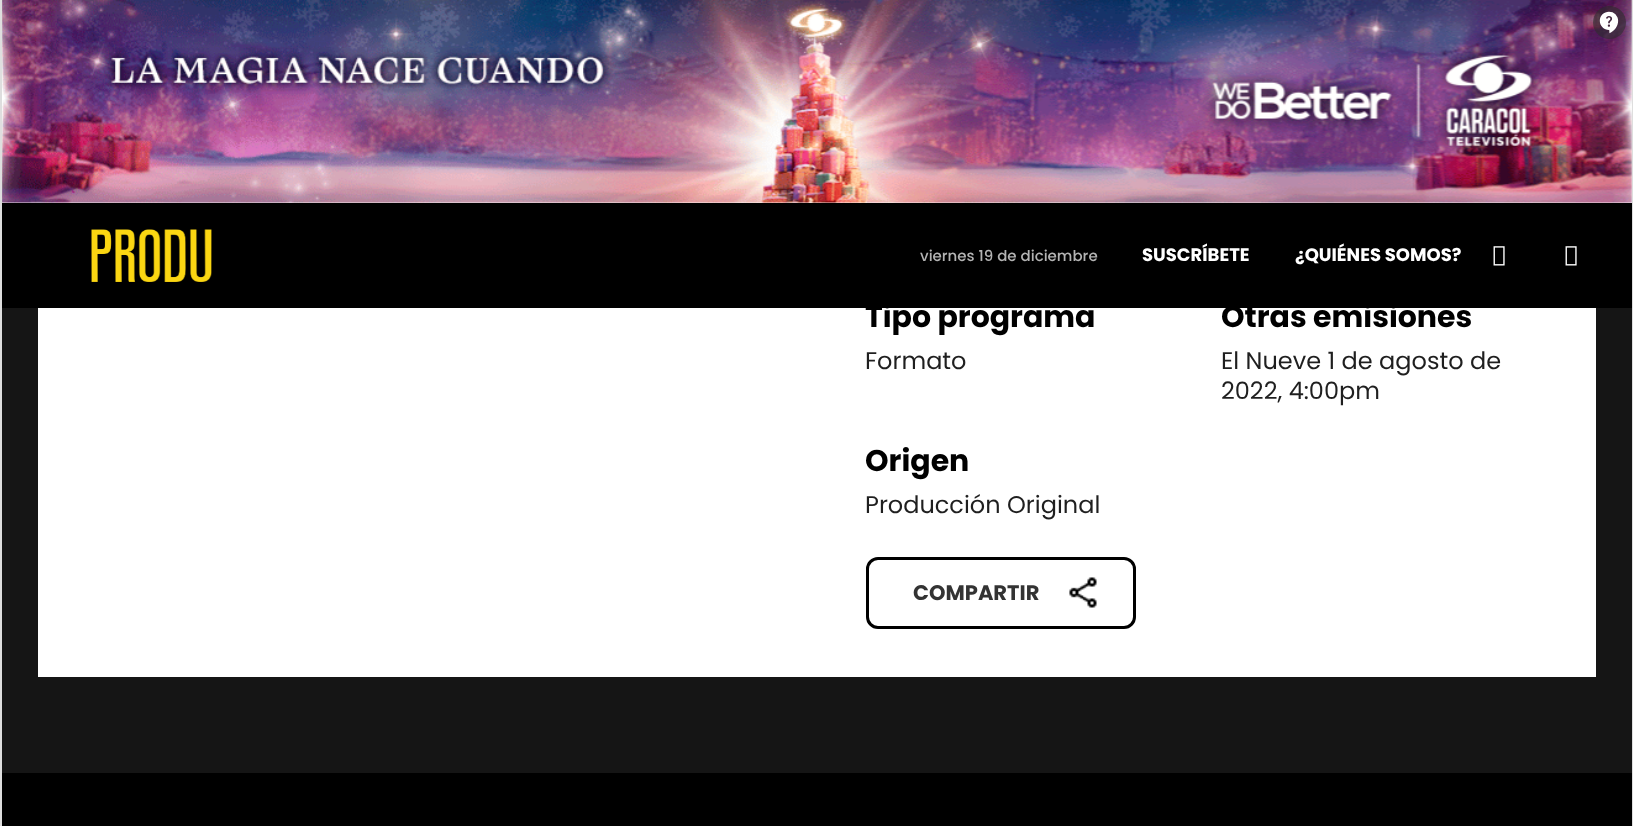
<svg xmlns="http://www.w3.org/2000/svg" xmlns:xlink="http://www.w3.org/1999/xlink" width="1633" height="826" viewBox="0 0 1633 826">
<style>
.cls-1{font:500 15px Poppins;fill:#b3b3b3}
.cls-2{font:bold 18px Poppins;fill:#ffffff}
.cls-3{font:bold 30px Poppins;fill:#000000}
.cls-4{font:24px Poppins;fill:#1f1f1f}
.cls-5{font:bold 21px Poppins;fill:#333333}
</style>
<rect width="100%" height="100%" fill="#dedede"/>
<rect fill="#f7f7f7" x="2" y="0" width="1630" height="203"/>
<image xlink:href="image0.png" x="2" y="0" width="1630" height="203"/>
<circle fill="#2d2d2d" fill-opacity="0.6" cx="1609.5" cy="22.5" r="16.5"/>
<image xlink:href="image1.png" x="1599" y="11" width="20" height="23"/>
<rect fill="#000000" x="2" y="203" width="1630" height="105"/>
<image xlink:href="image2.png" x="91" y="229" width="121" height="53"/>
<image xlink:href="image3.png" x="1493" y="246" width="12" height="20"/>
<image xlink:href="image3.png" x="1565" y="246" width="12" height="20"/>
<rect fill="#151515" x="2" y="308" width="1630" height="465"/>
<rect fill="#ffffff" x="38" y="308" width="1558" height="369"/>
<image xlink:href="image4.png" x="1069" y="577" width="28" height="31"/>
<rect fill="none" stroke="#000000" stroke-width="3" x="867.5" y="558.5" width="267" height="69" rx="10.5"/>
<rect fill="#000000" x="2" y="773" width="1630" height="53"/>
<text class="cls-1" x="920" y="261">viernes 19 de diciembre</text>
<text class="cls-2" x="1142" y="261">SUSCRÍBETE</text>
<text class="cls-2" x="1295" y="261">¿QUIÉNES SOMOS?</text>
<text class="cls-3" x="865" y="327">Tipo programa</text>
<text class="cls-4" x="865" y="369">Formato</text>
<text class="cls-3" x="865" y="471">Origen</text>
<text class="cls-4" x="865" y="513">Producción Original</text>
<text class="cls-3" x="1221" y="327">Otras emisiones</text>
<text class="cls-4"><tspan x="1221" y="369">El Nueve 1 de agosto de</tspan><tspan x="1221" y="399">2022, 4:00pm</tspan></text>
<text class="cls-5" x="913" y="600">COMPARTIR</text>
</svg>
